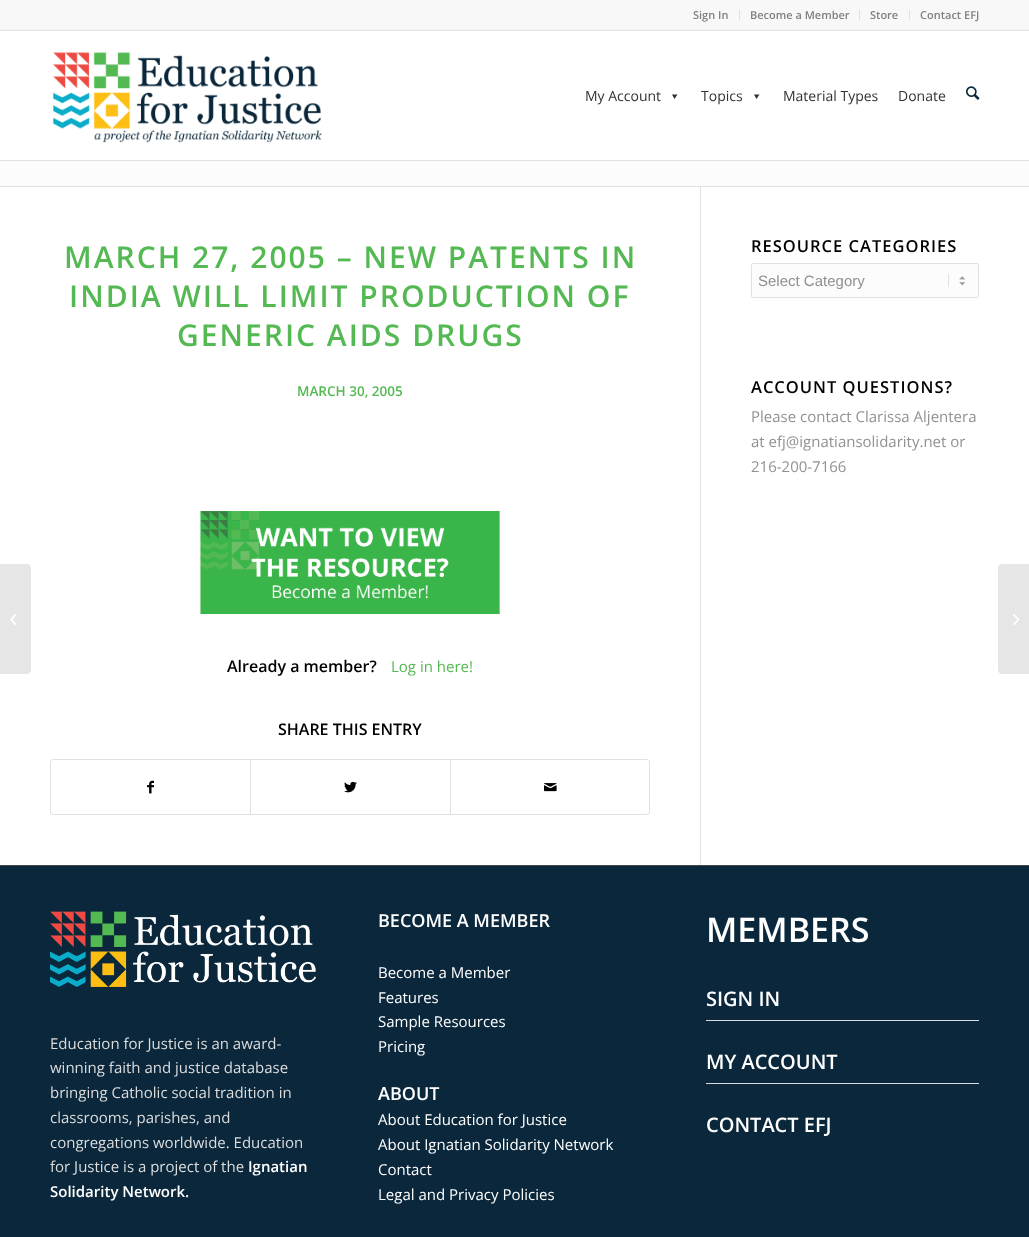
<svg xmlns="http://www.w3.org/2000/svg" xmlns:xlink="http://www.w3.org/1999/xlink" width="1029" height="1237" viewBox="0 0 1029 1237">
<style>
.cls-1{font:600 11px Open Sans;fill:#808080}
.cls-2{font:14px Open Sans;fill:#333333}
.cls-3{font:600 30px Open Sans;letter-spacing:2px;fill:#54b952}
.cls-4{font:600 13.5px Open Sans;fill:#54b952}
.cls-5{font:600 16px Open Sans;fill:#000000}
.cls-6{font:15px Open Sans;fill:#54b952}
.cls-7{font:600 16.5px Open Sans;letter-spacing:1px;fill:#000000}
.cls-8{font:15px Liberation Sans;fill:#919191}
.cls-9{font:15px Open Sans;fill:#919191}
.cls-10{font:15px Open Sans;fill:#dddddd}
.cls-11{font:600 15px Open Sans;fill:#ffffff}
.cls-12{font:600 18px Open Sans;fill:#ffffff}
.cls-13{font:15px Open Sans;fill:#ffffff}
.cls-14{font:600 34px Open Sans;fill:#ffffff}
.cls-15{font:600 20px Open Sans;fill:#ffffff}
</style>
<rect width="100%" height="100%" fill="#ffffff"/>
<rect fill="#f8f8f8" x="0" y="0" width="1029" height="30"/>
<rect fill="#e1e1e1" x="0" y="30" width="1029" height="1"/>
<rect fill="#e1e1e1" x="739" y="10" width="1" height="10"/>
<rect fill="#e1e1e1" x="859" y="10" width="1" height="10"/>
<rect fill="#e1e1e1" x="909" y="10" width="1" height="10"/>
<rect fill="#fcfcfc" x="0" y="129" width="1029" height="57"/>
<rect fill="#e1e1e1" x="0" y="160" width="1029" height="1"/>
<rect fill="#e1e1e1" x="0" y="128" width="1029" height="1"/>
<rect fill="#ffffff" fill-opacity="0.95" x="0" y="128" width="1029" height="32"/>
<image xlink:href="image0.png" x="53" y="52" width="269" height="91"/>
<path fill="#333333" d="M677.5 94.5L674.5 99L672 94.5Z"/>
<path fill="#333333" d="M759.5 94.5L756.5 99L754 94.5Z"/>
<image xlink:href="image1.png" x="966" y="86" width="14" height="14"/>
<path fill="#e6e6e6" d="M0 564H27C29 564 31 566 31 568V670C31 672 29 674 27 674H0Z"/>
<image xlink:href="image2.png" x="10" y="614" width="7" height="11"/>
<rect fill="#e1e1e1" x="0" y="186" width="1029" height="1"/>
<rect fill="#e1e1e1" x="700" y="187" width="1" height="678"/>
<image xlink:href="image3.png" x="200" y="511" width="300" height="103"/>
<rect fill="none" stroke="#e1e1e1" x="50.5" y="759.5" width="599" height="55" rx="2.5"/>
<image xlink:href="image4.png" x="147" y="780" width="7" height="14"/>
<rect fill="#e1e1e1" x="250" y="760" width="1" height="54"/>
<image xlink:href="image5.png" x="344" y="781" width="13" height="12"/>
<rect fill="#e1e1e1" x="450" y="760" width="1" height="54"/>
<image xlink:href="image6.png" x="544" y="783" width="13" height="9"/>
<rect fill="#fcfcfc" x="751" y="263" width="228" height="35" rx="2"/>
<image xlink:href="image7.png" x="948" y="274" width="18" height="13"/>
<rect fill="none" stroke="#e1e1e1" x="751.5" y="263.5" width="227" height="34" rx="1.5"/>
<rect fill="#0a273b" x="0" y="866" width="1029" height="371"/>
<rect fill="#444444" x="0" y="865" width="1029" height="1"/>
<image xlink:href="image8.png" x="50" y="911" width="266" height="76"/>
<rect fill="#dddddd" x="706" y="1020" width="273" height="1"/>
<rect fill="#dddddd" x="706" y="1083" width="273" height="1"/>
<path fill="#e6e6e6" d="M1002 564H1029V674H1002C1000 674 998 672 998 670V568C998 566 1000 564 1002 564Z"/>
<image xlink:href="image9.png" x="1013" y="614" width="7" height="11"/>
<text class="cls-1" x="693" y="19">Sign In</text>
<text class="cls-1" x="750" y="19">Become a Member</text>
<text class="cls-1" x="870" y="19">Store</text>
<text class="cls-1" x="920" y="19">Contact EFJ</text>
<text class="cls-2" x="585" y="101">My Account</text>
<text class="cls-2" x="701" y="101">Topics</text>
<text class="cls-2" x="783" y="101">Material Types</text>
<text class="cls-2" x="898" y="101">Donate</text>
<text class="cls-3" x="64" y="268">MARCH 27, 2005 – NEW PATENTS IN</text>
<text class="cls-3" x="69" y="307">INDIA WILL LIMIT PRODUCTION OF</text>
<text class="cls-3" x="177" y="346">GENERIC AIDS DRUGS</text>
<text class="cls-4" x="297" y="396">MARCH 30, 2005</text>
<text class="cls-5" x="227" y="672">Already a member?</text>
<text class="cls-6" x="391" y="672">Log in here!</text>
<text class="cls-5" x="278" y="735">SHARE THIS ENTRY</text>
<text class="cls-7" x="751" y="252">RESOURCE CATEGORIES</text>
<text class="cls-8" x="758" y="286">Select Category</text>
<text class="cls-7" x="751" y="393">ACCOUNT QUESTIONS?</text>
<text class="cls-9"><tspan x="751" y="422">Please contact Clarissa Aljentera</tspan><tspan x="751" y="447">at efj@ignatiansolidarity.net or</tspan><tspan x="751" y="472">216-200-7166</tspan></text>
<text class="cls-10"><tspan x="50" y="1049">Education for Justice is an award-</tspan><tspan x="50" y="1073">winning faith and justice database</tspan><tspan x="50" y="1098">bringing Catholic social tradition in</tspan><tspan x="50" y="1123">classrooms, parishes, and</tspan><tspan x="50" y="1148">congregations worldwide. Education</tspan><tspan x="50" y="1172">for Justice is a project of the</tspan></text>
<text class="cls-11" x="248" y="1172">Ignatian</text>
<text class="cls-11" x="50" y="1197">Solidarity Network.</text>
<text class="cls-12" x="378" y="927">BECOME A MEMBER</text>
<text class="cls-13"><tspan x="378" y="978">Become a Member</tspan><tspan x="378" y="1003">Features</tspan><tspan x="378" y="1027">Sample Resources</tspan><tspan x="378" y="1052">Pricing</tspan></text>
<text class="cls-12" x="378" y="1100">ABOUT</text>
<text class="cls-13"><tspan x="378" y="1125">About Education for Justice</tspan><tspan x="378" y="1150">About Ignatian Solidarity Network</tspan><tspan x="378" y="1175">Contact</tspan><tspan x="378" y="1200">Legal and Privacy Policies</tspan></text>
<text class="cls-14" x="706" y="942">MEMBERS</text>
<text class="cls-15" x="706" y="1006">SIGN IN</text>
<text class="cls-15" x="706" y="1069">MY ACCOUNT</text>
<text class="cls-15" x="706" y="1132">CONTACT EFJ</text>
</svg>
